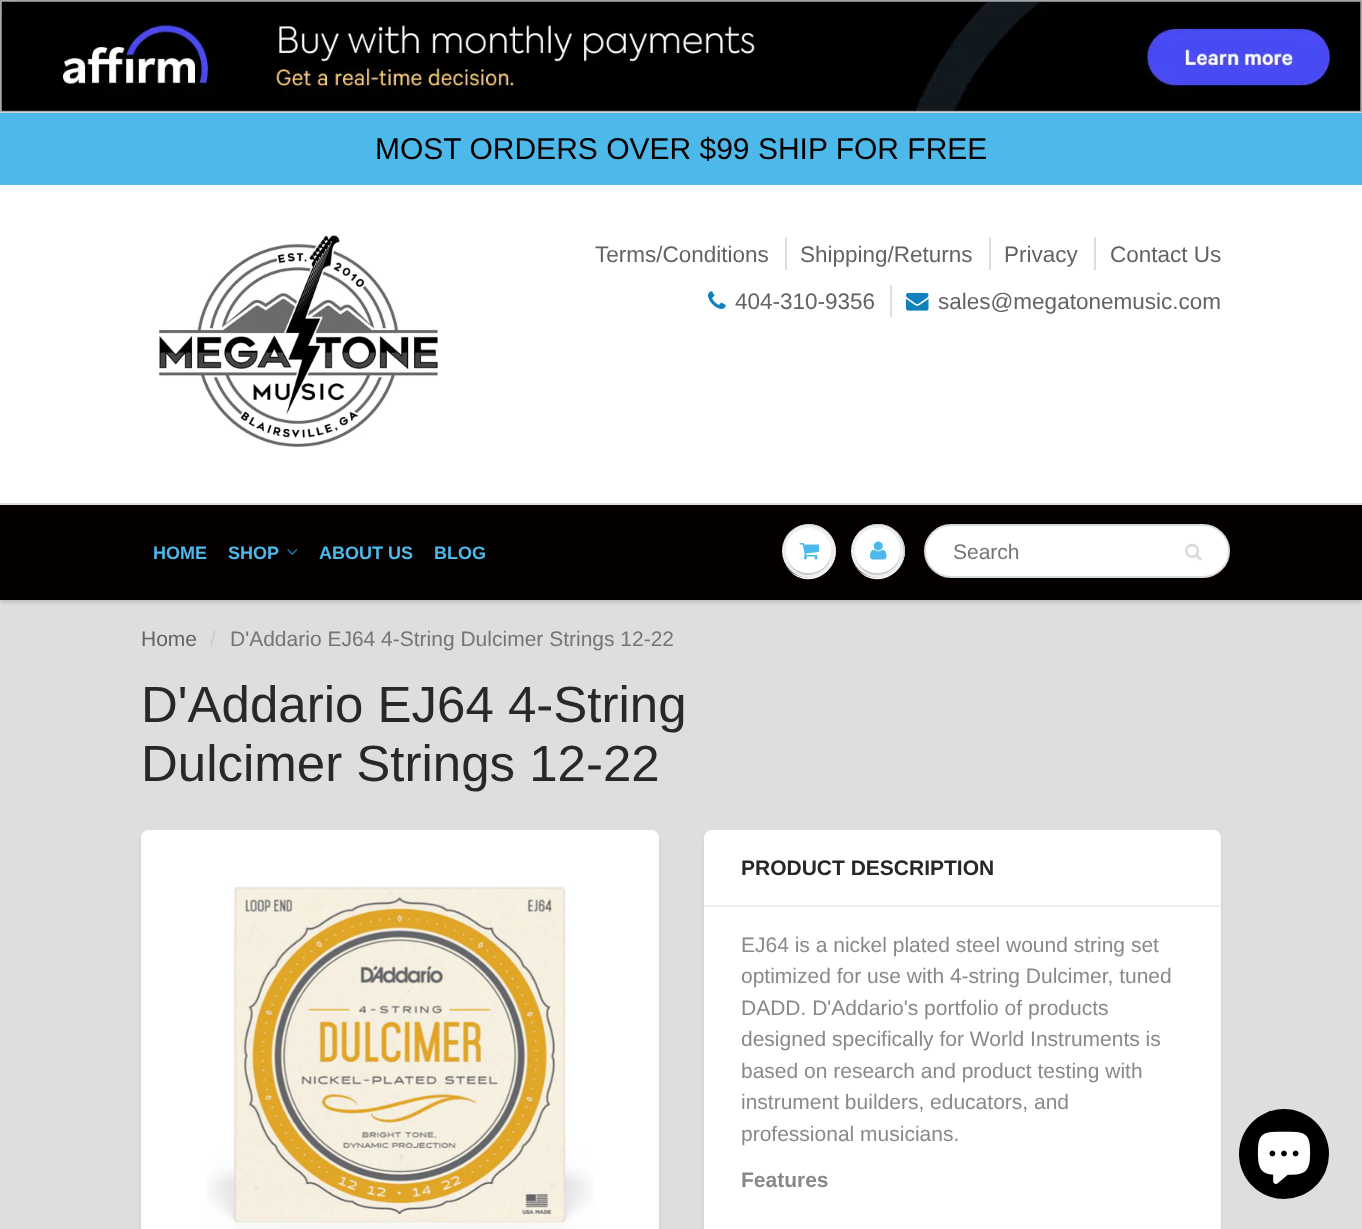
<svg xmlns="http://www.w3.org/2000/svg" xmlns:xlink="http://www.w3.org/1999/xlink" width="1362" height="1229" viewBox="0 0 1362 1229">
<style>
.cls-1{font:30px Arimo;fill:#080000}
.cls-2{font:22.5px Arimo;fill:#656262}
.cls-3{font:bold 18px Arimo;fill:#4cb9ea}
.cls-4{font:21px Arimo;fill:#777474}
.cls-5{font:21px Arimo;fill:#656262}
.cls-6{font:21px Arimo;fill:#cccccc}
.cls-7{font:51px Arimo;fill:#282827}
.cls-8{font:bold 21px Arimo;fill:#282827}
.cls-9{font:21px Arimo;fill:#898989}
.cls-10{font:bold 21px Arimo;fill:#898989}
</style>
<rect width="100%" height="100%" fill="#ffffff"/>
<image xlink:href="image0.png" x="0" y="0" width="1362" height="113"/>
<rect fill="#4cb9ea" x="0" y="113" width="1362" height="72"/>
<image xlink:href="image1.png" x="159" y="235" width="279" height="212"/>
<rect fill="#dedede" x="785" y="237" width="2" height="33"/>
<rect fill="#dedede" x="989" y="237" width="2" height="33"/>
<rect fill="#dedede" x="1094" y="237" width="2" height="33"/>
<image xlink:href="image2.png" x="708" y="291" width="18" height="18"/>
<rect fill="#dedede" x="890" y="285" width="2" height="32"/>
<image xlink:href="image3.png" x="906" y="292" width="23" height="19"/>
<rect fill="#dedede" x="0" y="600" width="1362" height="629"/>
<rect fill="#0b191c" fill-opacity="0.12" filter="blur(1.5px)" x="0" y="506" width="1362" height="97"/>
<rect fill="#050000" x="0" y="505" width="1362" height="95"/>
<rect fill="#dedede" x="0" y="503" width="1362" height="2"/>
<image xlink:href="image4.png" x="287" y="549" width="11" height="6"/>
<path fill="#ffffff" d="M783 560C785 565 788 570 793 574C814 590 843 567 834 543C844 576 795 592 783 560Z"/>
<circle fill="#edefef" cx="809" cy="551" r="27"/>
<path fill="#c9cbcb" d="M808 525C823 525 836 537 836 552C836 546 834 540 831 536C816 514 782 525 782 551C782 537 794 525 808 525ZM786 552C786 556 787 561 790 565C802 584 832 574 831 552C830 580 787 580 786 552Z"/>
<circle fill="#ffffff" cx="808.5" cy="550.5" r="22.5"/>
<path fill="#ffffff" d="M808 530C826 530 833 545 830 558C838 534 805 516 790 538C787 543 785 549 786 555C785 543 792 530 808 530Z"/>
<image xlink:href="image5.png" x="799" y="543" width="20" height="17"/>
<path fill="#ffffff" d="M852 560C854 565 857 570 862 574C883 590 912 567 903 543C913 576 864 592 852 560Z"/>
<circle fill="#edefef" cx="878" cy="551" r="27"/>
<path fill="#c9cbcb" d="M878 525C901 525 911 552 898 569C909 557 907 538 893 529C881 520 864 524 856 536C861 529 869 525 878 525Z"/>
<path fill="#c9cbcb" d="M855 552C855 556 856 561 859 565C871 584 901 574 900 552C899 580 856 580 855 552Z"/>
<circle fill="#ffffff" cx="877.5" cy="550.5" r="22.5"/>
<path fill="#ffffff" d="M878 530C894 530 901 543 900 555C901 549 899 543 896 538C881 516 848 534 856 558C853 545 860 530 878 530Z"/>
<image xlink:href="image6.png" x="870" y="541" width="17" height="19"/>
<rect fill="#ffffff" stroke="#d7dbdb" stroke-width="2" x="925" y="525" width="304" height="52" rx="26"/>
<image xlink:href="image7.png" x="1185" y="543" width="17" height="18"/>
<rect fill="#0b191c" fill-opacity="0.1" filter="blur(1.5px)" x="141" y="833" width="518" height="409" rx="8"/>
<rect fill="#ffffff" x="141" y="830" width="518" height="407" rx="8"/>
<image xlink:href="image8.png" x="207" y="886" width="387" height="343"/>
<rect fill="#0b191c" fill-opacity="0.1" filter="blur(1.5px)" x="704" y="833" width="517" height="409" rx="8"/>
<rect fill="#ffffff" x="704" y="830" width="517" height="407" rx="8"/>
<rect fill="#efefef" x="704" y="905" width="517" height="2"/>
<circle fill="#000000" cx="1284" cy="1154" r="45"/>
<image xlink:href="image9.png" x="1257" y="1131" width="54" height="53"/>
<text class="cls-1" x="375" y="159">MOST ORDERS OVER $99 SHIP FOR FREE</text>
<text class="cls-2" x="595" y="262">Terms/Conditions</text>
<text class="cls-2" x="800" y="262">Shipping/Returns</text>
<text class="cls-2" x="1004" y="262">Privacy</text>
<text class="cls-2" x="1110" y="262">Contact Us</text>
<text class="cls-2" x="735" y="309">404-310-9356</text>
<text class="cls-2" x="938" y="309">sales@megatonemusic.com</text>
<text class="cls-3" x="153" y="559">HOME</text>
<text class="cls-3" x="228" y="559">SHOP</text>
<text class="cls-3" x="319" y="559">ABOUT US</text>
<text class="cls-3" x="434" y="559">BLOG</text>
<text class="cls-4" x="953" y="559">Search</text>
<text class="cls-5" x="141" y="646">Home</text>
<text class="cls-6" x="210" y="646">/</text>
<text class="cls-4" x="230" y="646">D'Addario EJ64 4-String Dulcimer Strings 12-22</text>
<text class="cls-7"><tspan x="141" y="722">D'Addario EJ64 4-String</tspan><tspan x="141" y="781">Dulcimer Strings 12-22</tspan></text>
<text class="cls-8" x="741" y="875">PRODUCT DESCRIPTION</text>
<text class="cls-9"><tspan x="741" y="952">EJ64 is a nickel plated steel wound string set</tspan><tspan x="741" y="983">optimized for use with 4-string Dulcimer, tuned</tspan><tspan x="741" y="1015">DADD. D'Addario's portfolio of products</tspan><tspan x="741" y="1046">designed specifically for World Instruments is</tspan><tspan x="741" y="1078">based on research and product testing with</tspan><tspan x="741" y="1109">instrument builders, educators, and</tspan><tspan x="741" y="1141">professional musicians.</tspan></text>
<text class="cls-10" x="741" y="1187">Features</text>
</svg>
